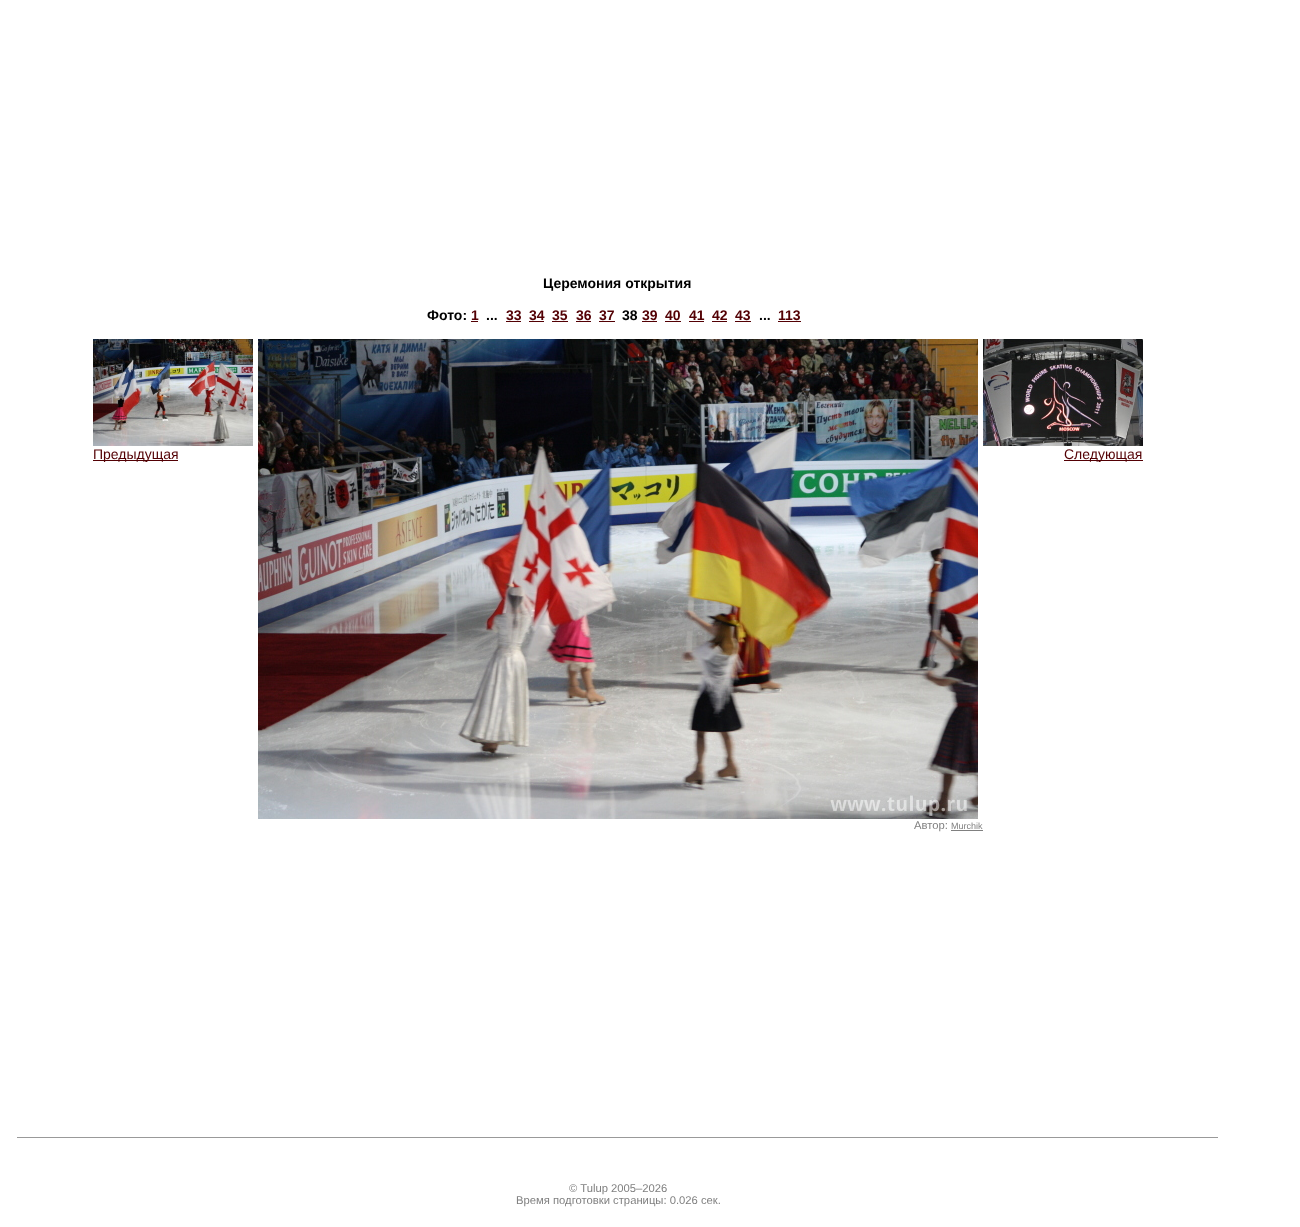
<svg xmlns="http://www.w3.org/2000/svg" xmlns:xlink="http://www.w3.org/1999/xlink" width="1300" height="1227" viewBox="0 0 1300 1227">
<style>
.cls-1{font:bold 14px Liberation Sans;fill:#000000}
.cls-2{font:bold 14px Liberation Sans;fill:#530004}
.cls-3{font:14px Liberation Sans;fill:#530004}
.cls-4{font:11.25px Liberation Sans;fill:#808080}
.cls-5{font:9px Liberation Sans;fill:#808080}
</style>
<rect width="100%" height="100%" fill="#ffffff"/>
<rect fill="#530004" x="471" y="321" width="7" height="1"/>
<rect fill="#530004" x="506" y="321" width="15" height="1"/>
<rect fill="#530004" x="529" y="321" width="15" height="1"/>
<rect fill="#530004" x="552" y="321" width="16" height="1"/>
<rect fill="#530004" x="576" y="321" width="15" height="1"/>
<rect fill="#530004" x="599" y="321" width="16" height="1"/>
<rect fill="#530004" x="642" y="321" width="15" height="1"/>
<rect fill="#530004" x="665" y="321" width="16" height="1"/>
<rect fill="#530004" x="689" y="321" width="15" height="1"/>
<rect fill="#530004" x="712" y="321" width="15" height="1"/>
<rect fill="#530004" x="735" y="321" width="16" height="1"/>
<rect fill="#530004" x="778" y="321" width="23" height="1"/>
<image xlink:href="image0.png" x="93" y="339" width="160" height="107"/>
<rect fill="#530004" x="93" y="460" width="85" height="1"/>
<image xlink:href="image1.png" x="983" y="339" width="160" height="107"/>
<rect fill="#530004" x="1064" y="460" width="79" height="1"/>
<image xlink:href="image2.png" x="258" y="339" width="720" height="480"/>
<rect fill="#808080" x="951" y="830" width="32" height="1"/>
<rect fill="#999999" x="17" y="1137" width="1201" height="1"/>
<text class="cls-1" x="543" y="288">Церемония открытия</text>
<text class="cls-1" x="427" y="320">Фото:</text>
<text class="cls-2" x="471" y="320">1</text>
<text class="cls-1" x="486" y="320">...</text>
<text class="cls-2" x="506" y="320">33</text>
<text class="cls-2" x="529" y="320">34</text>
<text class="cls-2" x="552" y="320">35</text>
<text class="cls-2" x="576" y="320">36</text>
<text class="cls-2" x="599" y="320">37</text>
<text class="cls-1" x="622" y="320">38</text>
<text class="cls-2" x="642" y="320">39</text>
<text class="cls-2" x="665" y="320">40</text>
<text class="cls-2" x="689" y="320">41</text>
<text class="cls-2" x="712" y="320">42</text>
<text class="cls-2" x="735" y="320">43</text>
<text class="cls-1" x="759" y="320">...</text>
<text class="cls-2" x="778" y="320">113</text>
<text class="cls-3" x="93" y="459">Предыдущая</text>
<text class="cls-3" x="1064" y="459">Следующая</text>
<text class="cls-4" x="914" y="829">Автор:</text>
<text class="cls-5" x="951" y="829">Murchik</text>
<text class="cls-4" x="569" y="1192">© Tulup 2005–2026</text>
<text class="cls-4" x="516" y="1204">Время подготовки страницы: 0.026 сек.</text>
</svg>
